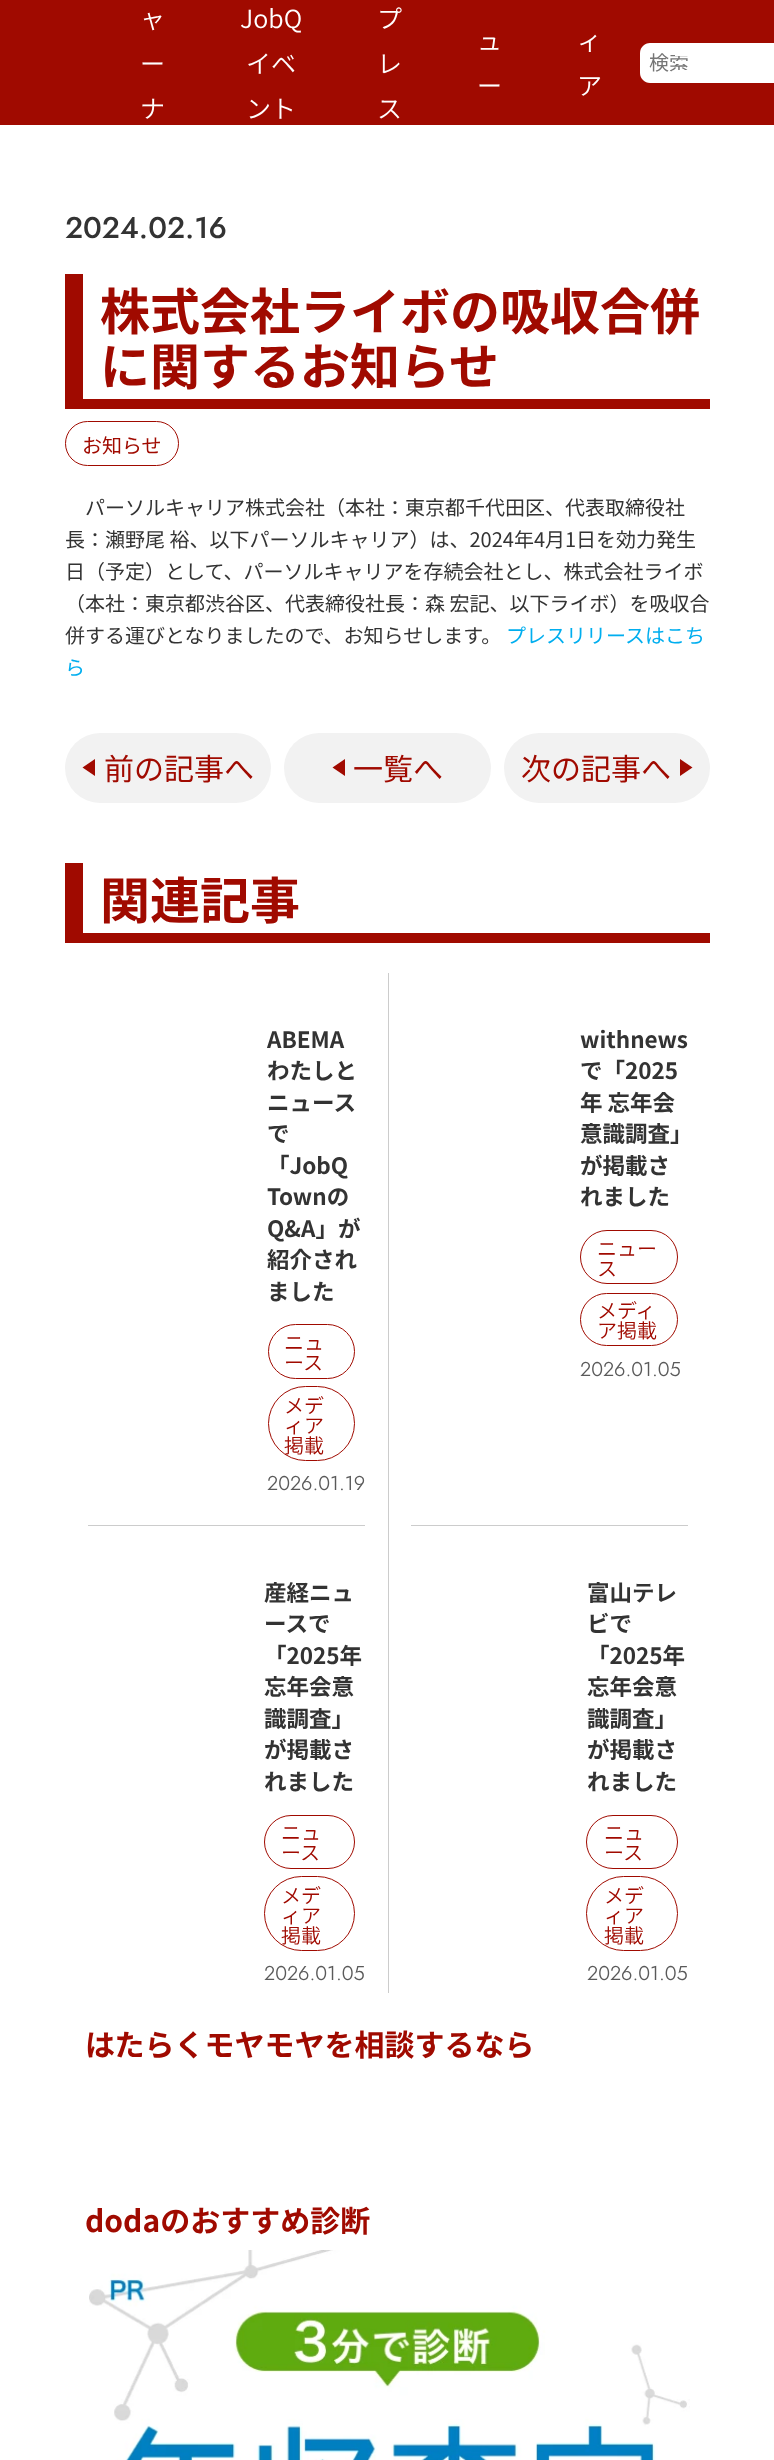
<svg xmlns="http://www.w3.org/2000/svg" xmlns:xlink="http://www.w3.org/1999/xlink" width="774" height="2460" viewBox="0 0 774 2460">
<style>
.cls-1{font:300 25px Noto Sans JP;fill:#ffffff}
.cls-2{font:20px Noto Sans JP;fill:#757575}
.cls-3{font:500 30px Jost;fill:#333333}
.cls-4{font:bold 50px Noto Sans JP;fill:#a00a00}
.cls-5{font:20px Noto Sans JP;fill:#a00a00}
.cls-6{font:20px Noto Sans JP;fill:#333333}
.cls-7{font:20px Noto Sans JP;fill:#00aeef}
.cls-8{font:30px Noto Sans JP;fill:#a00a00}
.cls-9{font:bold 22.5px Noto Sans JP;fill:#333333}
.cls-10{font:300 20px Noto Sans JP;fill:#a00a00}
.cls-11{font:300 20px Jost;fill:#5a5a5a}
.cls-12{font:bold 30px Noto Sans JP;fill:#a00a00}
</style>
<rect width="100%" height="100%" fill="#ffffff"/>
<rect fill="#a00a00" x="0" y="0" width="774" height="125"/>
<path fill="#ffffff" d="M650 43H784V83H650C644.5 83 640 78.5 640 73V53C640 47.5 644.5 43 650 43Z"/>
<rect fill="#a00a00" x="83" y="399" width="627" height="10"/>
<rect fill="#a00a00" x="65" y="274" width="18" height="135"/>
<rect fill="none" stroke="#a00a00" x="65.5" y="421.5" width="113" height="44" rx="22"/>
<rect fill="#f2f2f2" x="65" y="733" width="206" height="70" rx="35"/>
<path fill="#a00a00" d="M95 759V776L82.5 767.5Z"/>
<rect fill="#f2f2f2" x="284" y="733" width="207" height="70" rx="35"/>
<path fill="#a00a00" d="M345 759V776L332.5 767.5Z"/>
<rect fill="#f2f2f2" x="504" y="733" width="206" height="70" rx="35"/>
<path fill="#a00a00" d="M680 776V759L692.5 767.5Z"/>
<rect fill="#a00a00" x="83" y="933" width="627" height="10"/>
<rect fill="#a00a00" x="65" y="863" width="18" height="80"/>
<rect fill="none" stroke="#a00a00" x="268.5" y="1324.5" width="86" height="54" rx="27"/>
<rect fill="none" stroke="#a00a00" x="268.5" y="1386.5" width="86" height="74" rx="37"/>
<rect fill="#cccccc" x="388" y="973" width="1" height="1020"/>
<rect fill="none" stroke="#a00a00" x="580.5" y="1230.5" width="97" height="53" rx="26.5"/>
<rect fill="none" stroke="#a00a00" x="580.5" y="1293.5" width="97" height="52" rx="26"/>
<rect fill="#cccccc" x="88" y="1525" width="277" height="1"/>
<rect fill="none" stroke="#a00a00" x="264.5" y="1815.5" width="90" height="53" rx="26.5"/>
<rect fill="none" stroke="#a00a00" x="264.5" y="1876.5" width="90" height="74" rx="37"/>
<rect fill="#cccccc" x="411" y="1525" width="277" height="1"/>
<rect fill="none" stroke="#a00a00" x="586.5" y="1815.5" width="91" height="53" rx="26.5"/>
<rect fill="none" stroke="#a00a00" x="586.5" y="1876.5" width="91" height="74" rx="37"/>
<image xlink:href="image0.png" x="89" y="2250" width="601" height="210"/>
<text class="cls-1"><tspan x="140" y="28">ャ</tspan><tspan x="140" y="73">ー</tspan><tspan x="140" y="118">ナ</tspan></text>
<text class="cls-1" x="240" y="28">JobQ</text>
<text class="cls-1"><tspan x="246" y="73">イベ</tspan><tspan x="246" y="118">ント</tspan></text>
<text class="cls-1"><tspan x="377" y="28">プ</tspan><tspan x="377" y="73">レ</tspan><tspan x="377" y="118">ス</tspan></text>
<text class="cls-1"><tspan x="477" y="50">ュ</tspan><tspan x="477" y="95">ー</tspan></text>
<text class="cls-1"><tspan x="577" y="50">ィ</tspan><tspan x="577" y="95">ア</tspan></text>
<text class="cls-2" x="649" y="70">検索</text>
<rect fill="#ffffff" x="675" y="53" width="13" height="3"/>
<rect fill="#ffffff" x="675" y="61" width="14" height="3"/>
<rect fill="#ffffff" x="675" y="70" width="14" height="2"/>
<text class="cls-3" x="65" y="238">2024.02.16</text>
<text class="cls-4"><tspan x="100" y="330">株式会社ライボの吸収合併</tspan><tspan x="100" y="385">に関するお知らせ</tspan></text>
<text class="cls-5" x="82" y="453">お知らせ</text>
<text class="cls-6" x="85" y="515">パーソルキャリア株式会社（本社：東京都千代田区、代表取締役社</text>
<text class="cls-6"><tspan x="65" y="547">長：瀬野尾 裕、以下パーソルキャリア）は、2024年4月1日を効力発生</tspan><tspan x="65" y="579">日（予定）として、パーソルキャリアを存続会社とし、株式会社ライボ</tspan><tspan x="65" y="611">（本社：東京都渋谷区、代表締役社長：森 宏記、以下ライボ）を吸収合</tspan><tspan x="65" y="643">併する運びとなりましたので、お知らせします。</tspan></text>
<text class="cls-7" x="506" y="643">プレスリリースはこち</text>
<text class="cls-7" x="65" y="675">ら</text>
<text class="cls-8" x="104" y="780">前の記事へ</text>
<text class="cls-8" x="353" y="780">一覧へ</text>
<text class="cls-8" x="521" y="780">次の記事へ</text>
<text class="cls-4" x="100" y="919">関連記事</text>
<text class="cls-9"><tspan x="267" y="1048">ABEMA</tspan><tspan x="267" y="1079">わたしと</tspan><tspan x="267" y="1111">ニュース</tspan><tspan x="267" y="1142">で</tspan><tspan x="267" y="1174">「JobQ</tspan><tspan x="267" y="1205">Townの</tspan><tspan x="267" y="1237">Q&amp;A」が</tspan><tspan x="267" y="1268">紹介され</tspan><tspan x="267" y="1300">ました</tspan></text>
<text class="cls-10"><tspan x="284" y="1350">ニュ</tspan><tspan x="284" y="1370">ース</tspan></text>
<text class="cls-10"><tspan x="284" y="1413">メデ</tspan><tspan x="284" y="1433">ィア</tspan><tspan x="284" y="1453">掲載</tspan></text>
<text class="cls-11" x="267" y="1490">2026.01.19</text>
<text class="cls-9"><tspan x="580" y="1048">withnews</tspan><tspan x="580" y="1079">で「2025</tspan><tspan x="580" y="1111">年 忘年会</tspan><tspan x="580" y="1142">意識調査」</tspan><tspan x="580" y="1174">が掲載さ</tspan><tspan x="580" y="1205">れました</tspan></text>
<text class="cls-10"><tspan x="597" y="1256">ニュー</tspan><tspan x="597" y="1276">ス</tspan></text>
<text class="cls-10"><tspan x="597" y="1318">メディ</tspan><tspan x="597" y="1338">ア掲載</tspan></text>
<text class="cls-11" x="580" y="1376">2026.01.05</text>
<text class="cls-9"><tspan x="264" y="1601">産経ニュ</tspan><tspan x="264" y="1632">ースで</tspan><tspan x="264" y="1664">「2025年</tspan><tspan x="264" y="1695">忘年会意</tspan><tspan x="264" y="1727">識調査」</tspan><tspan x="264" y="1758">が掲載さ</tspan><tspan x="264" y="1790">れました</tspan></text>
<text class="cls-10"><tspan x="281" y="1840">ニュ</tspan><tspan x="281" y="1860">ース</tspan></text>
<text class="cls-10"><tspan x="281" y="1903">メデ</tspan><tspan x="281" y="1923">ィア</tspan><tspan x="281" y="1943">掲載</tspan></text>
<text class="cls-11" x="264" y="1980">2026.01.05</text>
<text class="cls-9"><tspan x="587" y="1601">富山テレ</tspan><tspan x="587" y="1632">ビで</tspan><tspan x="587" y="1664">「2025年</tspan><tspan x="587" y="1695">忘年会意</tspan><tspan x="587" y="1727">識調査」</tspan><tspan x="587" y="1758">が掲載さ</tspan><tspan x="587" y="1790">れました</tspan></text>
<text class="cls-10"><tspan x="604" y="1840">ニュ</tspan><tspan x="604" y="1860">ース</tspan></text>
<text class="cls-10"><tspan x="604" y="1903">メデ</tspan><tspan x="604" y="1923">ィア</tspan><tspan x="604" y="1943">掲載</tspan></text>
<text class="cls-11" x="587" y="1980">2026.01.05</text>
<text class="cls-12" x="85" y="2056">はたらくモヤモヤを相談するなら</text>
<text class="cls-12" x="85" y="2232">dodaのおすすめ診断</text>
</svg>
